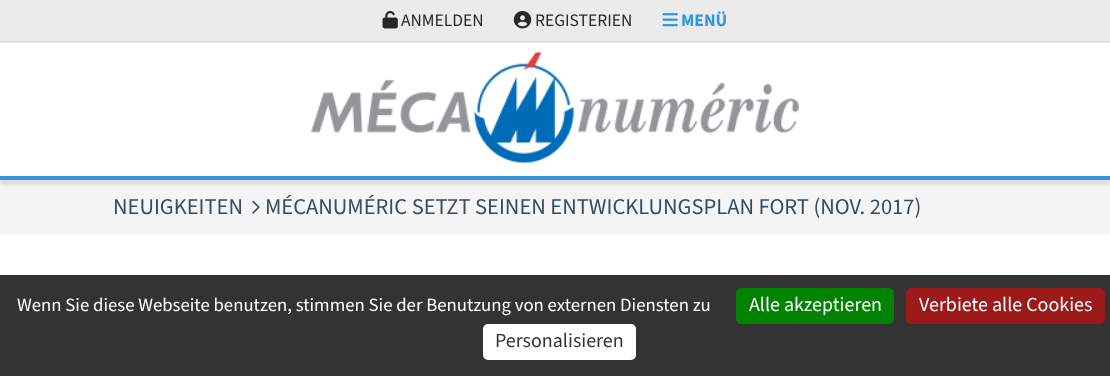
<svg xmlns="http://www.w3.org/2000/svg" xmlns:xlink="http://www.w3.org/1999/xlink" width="1110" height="376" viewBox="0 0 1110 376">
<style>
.cls-1{font:17.5px 'Source Sans 3';fill:#292929}
.cls-2{font:bold 17.5px 'Source Sans 3';fill:#3196de}
.cls-3{font:22.5px 'Source Sans 3';fill:#394a58}
.cls-4{font:18.75px 'Source Sans 3';fill:#ffffff}
.cls-5{font:20px 'Source Sans 3';fill:#ffffff}
.cls-6{font:20px 'Source Sans 3';fill:#333333}
</style>
<rect width="100%" height="100%" fill="#ffffff"/>
<rect fill="#ebebeb" x="0" y="0" width="1110" height="43"/>
<rect fill="#d9dadb" x="0" y="41" width="1110" height="1"/>
<image xlink:href="image0.png" x="382" y="10" width="16" height="19"/>
<image xlink:href="image1.png" x="513" y="10" width="19" height="19"/>
<image xlink:href="image2.png" x="662" y="13" width="16" height="14"/>
<image xlink:href="image3.png" x="311" y="52" width="488" height="111"/>
<rect fill="#f5f5f5" x="0" y="180" width="1110" height="55"/>
<rect fill="#000000" fill-opacity="0.15" filter="blur(2px)" x="0" y="180" width="1110" height="4"/>
<rect fill="#3196de" x="0" y="176" width="1110" height="4"/>
<image xlink:href="image4.png" x="252" y="200" width="8" height="14"/>
<rect fill="#333333" x="0" y="275" width="1110" height="101"/>
<rect fill="#008300" x="736" y="288" width="158" height="36" rx="5"/>
<rect fill="#9c1a1a" x="906" y="288" width="199" height="36" rx="5"/>
<rect fill="#ffffff" x="483" y="324" width="153" height="36" rx="5"/>
<text class="cls-1" x="401" y="26">ANMELDEN</text>
<text class="cls-1" x="535" y="26">REGISTERIEN</text>
<text class="cls-2" x="681" y="26">MENÜ</text>
<text class="cls-3" x="113" y="214">NEUIGKEITEN</text>
<text class="cls-3" x="265" y="214">MÉCANUMÉRIC SETZT SEINEN ENTWICKLUNGSPLAN FORT (NOV. 2017)</text>
<text class="cls-4" x="17" y="311">Wenn Sie diese Webseite benutzen, stimmen Sie der Benutzung von externen Diensten zu</text>
<text class="cls-5" x="749" y="311">Alle akzeptieren</text>
<text class="cls-5" x="919" y="311">Verbiete alle Cookies</text>
<text class="cls-6" x="495" y="347">Personalisieren</text>
</svg>
